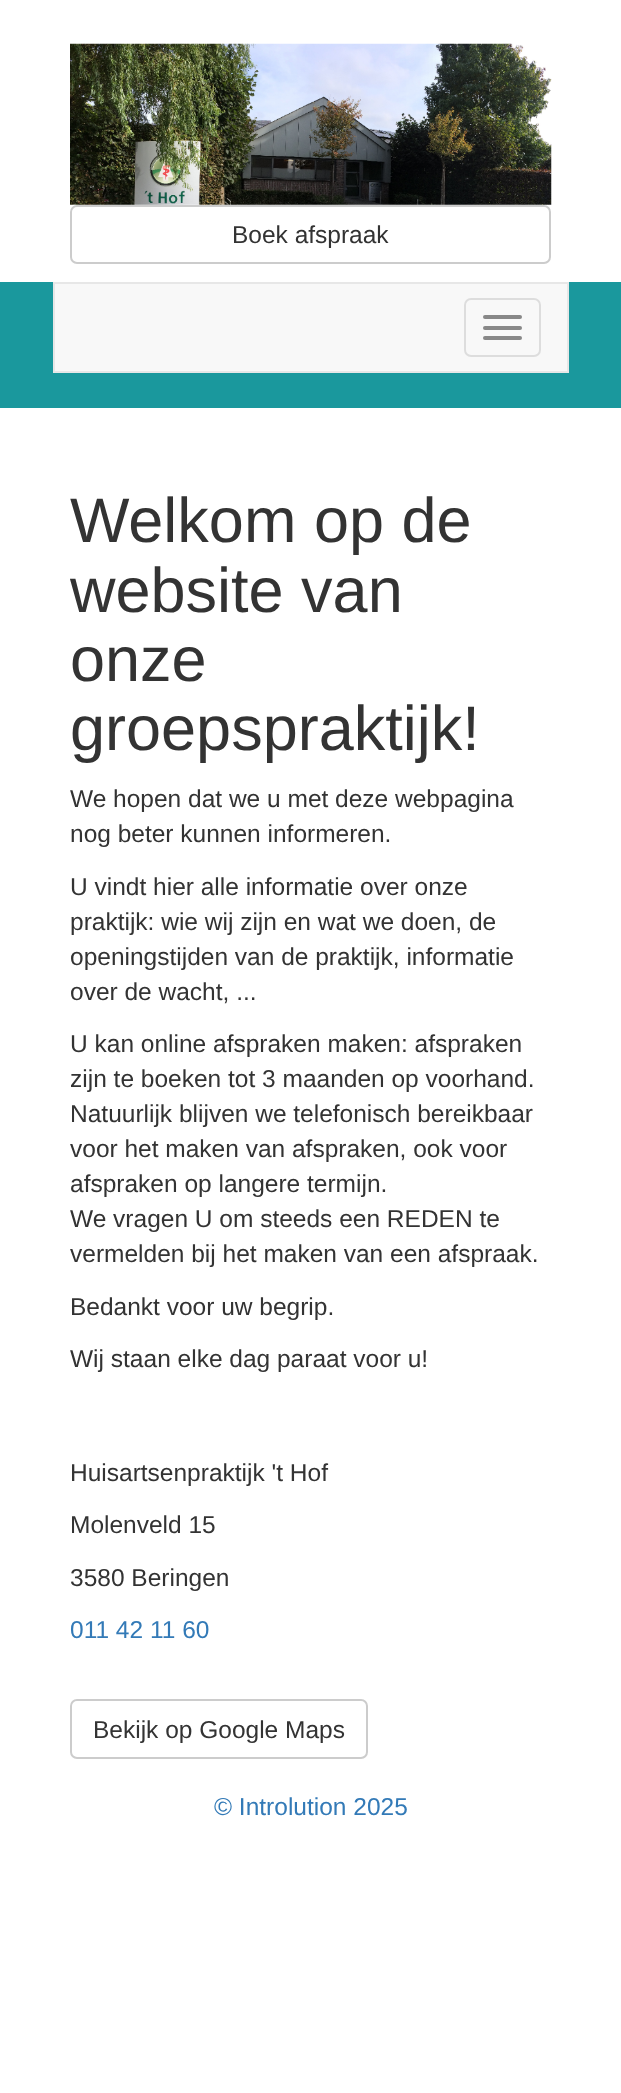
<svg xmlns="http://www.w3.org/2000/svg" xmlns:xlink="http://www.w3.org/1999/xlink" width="621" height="2093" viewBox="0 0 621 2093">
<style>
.cls-1{font:24.5px Liberation Sans;fill:#333333}
.cls-2{font:63px Liberation Sans;fill:#333333}
.cls-3{font:24.5px Liberation Sans;fill:#337ab7}
</style>
<rect width="100%" height="100%" fill="#ffffff"/>
<image xlink:href="image0.png" x="70" y="43" width="482" height="162"/>
<rect fill="none" stroke="#cccccc" stroke-width="2" x="71" y="206" width="479" height="57" rx="6"/>
<rect fill="#1a989d" x="0" y="282" width="621" height="126"/>
<rect fill="#f8f8f8" stroke="#e7e7e7" stroke-width="2" x="54" y="283" width="514" height="89"/>
<rect fill="none" stroke="#dddddd" stroke-width="2" x="465" y="299" width="75" height="57" rx="6"/>
<rect fill="#888888" x="483" y="315" width="39" height="4" rx="2"/>
<rect fill="#888888" x="483" y="326" width="39" height="4" rx="2"/>
<rect fill="#888888" x="483" y="336" width="39" height="4" rx="2"/>
<rect fill="none" stroke="#cccccc" stroke-width="2" x="71" y="1700" width="296" height="58" rx="6"/>
<text class="cls-1" x="232" y="243">Boek afspraak</text>
<text class="cls-2"><tspan x="70" y="542">Welkom op de</tspan><tspan x="70" y="612">website van</tspan><tspan x="70" y="681">onze</tspan><tspan x="70" y="750">groepspraktijk!</tspan></text>
<text class="cls-1"><tspan x="70" y="807">We hopen dat we u met deze webpagina</tspan><tspan x="70" y="842">nog beter kunnen informeren.</tspan></text>
<text class="cls-1"><tspan x="70" y="895">U vindt hier alle informatie over onze</tspan><tspan x="70" y="930">praktijk: wie wij zijn en wat we doen, de</tspan><tspan x="70" y="965">openingstijden van de praktijk, informatie</tspan><tspan x="70" y="1000">over de wacht, ...</tspan></text>
<text class="cls-1"><tspan x="70" y="1052">U kan online afspraken maken: afspraken</tspan><tspan x="70" y="1087">zijn te boeken tot 3 maanden op voorhand.</tspan><tspan x="70" y="1122">Natuurlijk blijven we telefonisch bereikbaar</tspan><tspan x="70" y="1157">voor het maken van afspraken, ook voor</tspan><tspan x="70" y="1192">afspraken op langere termijn.</tspan><tspan x="70" y="1227">We vragen U om steeds een REDEN te</tspan><tspan x="70" y="1262">vermelden bij het maken van een afspraak.</tspan></text>
<text class="cls-1" x="70" y="1315">Bedankt voor uw begrip.</text>
<text class="cls-1" x="70" y="1367">Wij staan elke dag paraat voor u!</text>
<text class="cls-1" x="70" y="1481">Huisartsenpraktijk 't Hof</text>
<text class="cls-1" x="70" y="1533">Molenveld 15</text>
<text class="cls-1" x="70" y="1586">3580 Beringen</text>
<text class="cls-3" x="70" y="1638">011 42 11 60</text>
<text class="cls-1" x="93" y="1738">Bekijk op Google Maps</text>
<text class="cls-3" x="214" y="1815">© Introlution 2025</text>
</svg>
